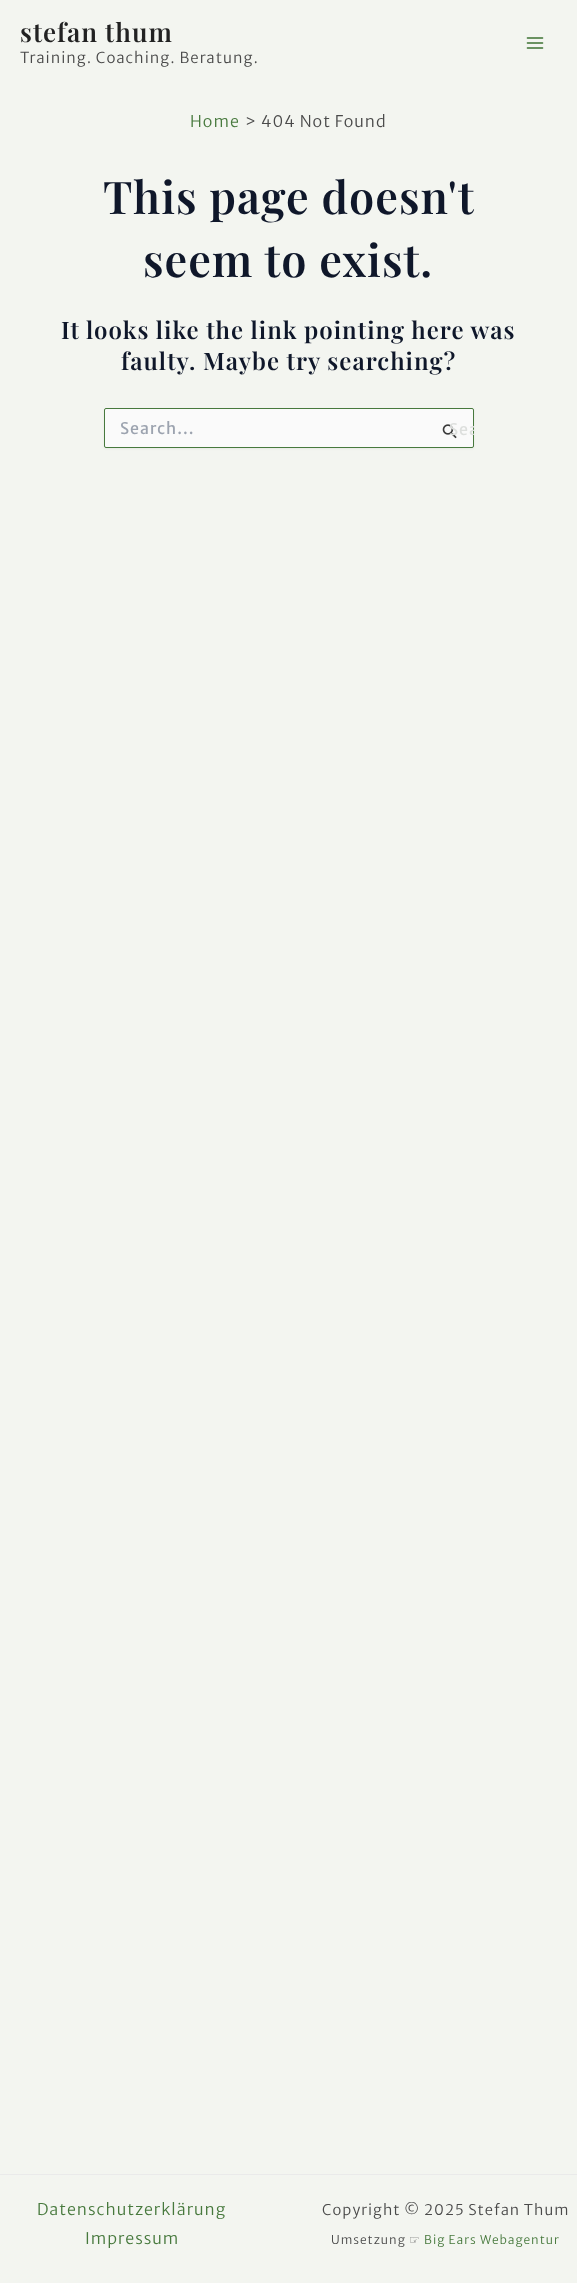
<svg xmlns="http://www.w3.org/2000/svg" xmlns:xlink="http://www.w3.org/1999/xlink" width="577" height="2283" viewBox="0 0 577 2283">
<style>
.cls-1{font:600 26px Playfair Display;letter-spacing:1px;fill:#222222}
.cls-2{font:300 15px Merriweather Sans;letter-spacing:1px;fill:#4a4a4a}
.cls-3{font:300 16px Merriweather Sans;letter-spacing:1px;fill:#47793d}
.cls-4{font:300 16px Merriweather Sans;letter-spacing:1px;fill:#4a4a4a}
.cls-5{font:600 45px Playfair Display;letter-spacing:1px;fill:#0f172a}
.cls-6{font:600 24px Playfair Display;letter-spacing:1px;fill:#0f172a}
.cls-7{font:16px Merriweather Sans;letter-spacing:1px;fill:#9ca3af}
.cls-8{font:16px Merriweather Sans;letter-spacing:1px;fill:#dddfdd}
.cls-9{font:300 14.7px Merriweather Sans;letter-spacing:1px;fill:#4a4a4a}
.cls-10{font:300 12px Merriweather Sans;letter-spacing:1px;fill:#4a4a4a}
.cls-11{font:12px DejaVu Sans;letter-spacing:1px;fill:#4a4a4a}
.cls-12{font:300 12px Merriweather Sans;letter-spacing:1px;fill:#47793d}
</style>
<defs>
<clipPath id="clip1"><rect x="429" y="408" width="45" height="42" rx="2"/></clipPath>
</defs>
<rect width="100%" height="100%" fill="#f3f5f0"/>
<image xlink:href="image0.png" x="526" y="37" width="18" height="12"/>
<rect fill="#000000" fill-opacity="0.05" filter="blur(1px)" x="104" y="409" width="370" height="40" rx="2"/>
<rect fill="#fafafa" stroke="#47793d" x="104.5" y="408.5" width="369" height="39" rx="1.5"/>
<image xlink:href="image1.png" x="442" y="424" width="15" height="15"/>
<rect fill="#eaeaea" x="0" y="2174" width="577" height="1"/>
<text class="cls-1" x="20" y="42">stefan thum</text>
<text class="cls-2" x="20" y="63">Training. Coaching. Beratung.</text>
<text class="cls-3" x="190" y="127">Home</text>
<text class="cls-4" x="245" y="127">&gt;</text>
<text class="cls-4" x="261" y="127">404 Not Found</text>
<text class="cls-5" x="103" y="214">This page doesn't</text>
<text class="cls-5" x="143" y="277">seem to exist.</text>
<text class="cls-6" x="61" y="339">It looks like the link pointing here was</text>
<text class="cls-6" x="121" y="370">faulty. Maybe try searching?</text>
<text class="cls-7" x="120" y="434">Search...</text>
<g clip-path="url(#clip1)">
<text class="cls-8" x="449" y="435">Sea</text>
</g>
<text class="cls-3" x="37" y="2215">Datenschutzerklärung</text>
<text class="cls-3" x="85" y="2244">Impressum</text>
<text class="cls-9" x="322" y="2215">Copyright © 2025 Stefan Thum</text>
<text class="cls-10" x="331" y="2244">Umsetzung</text>
<text class="cls-11" x="409" y="2244">☞</text>
<text class="cls-12" x="424" y="2244">Big Ears Webagentur</text>
</svg>
